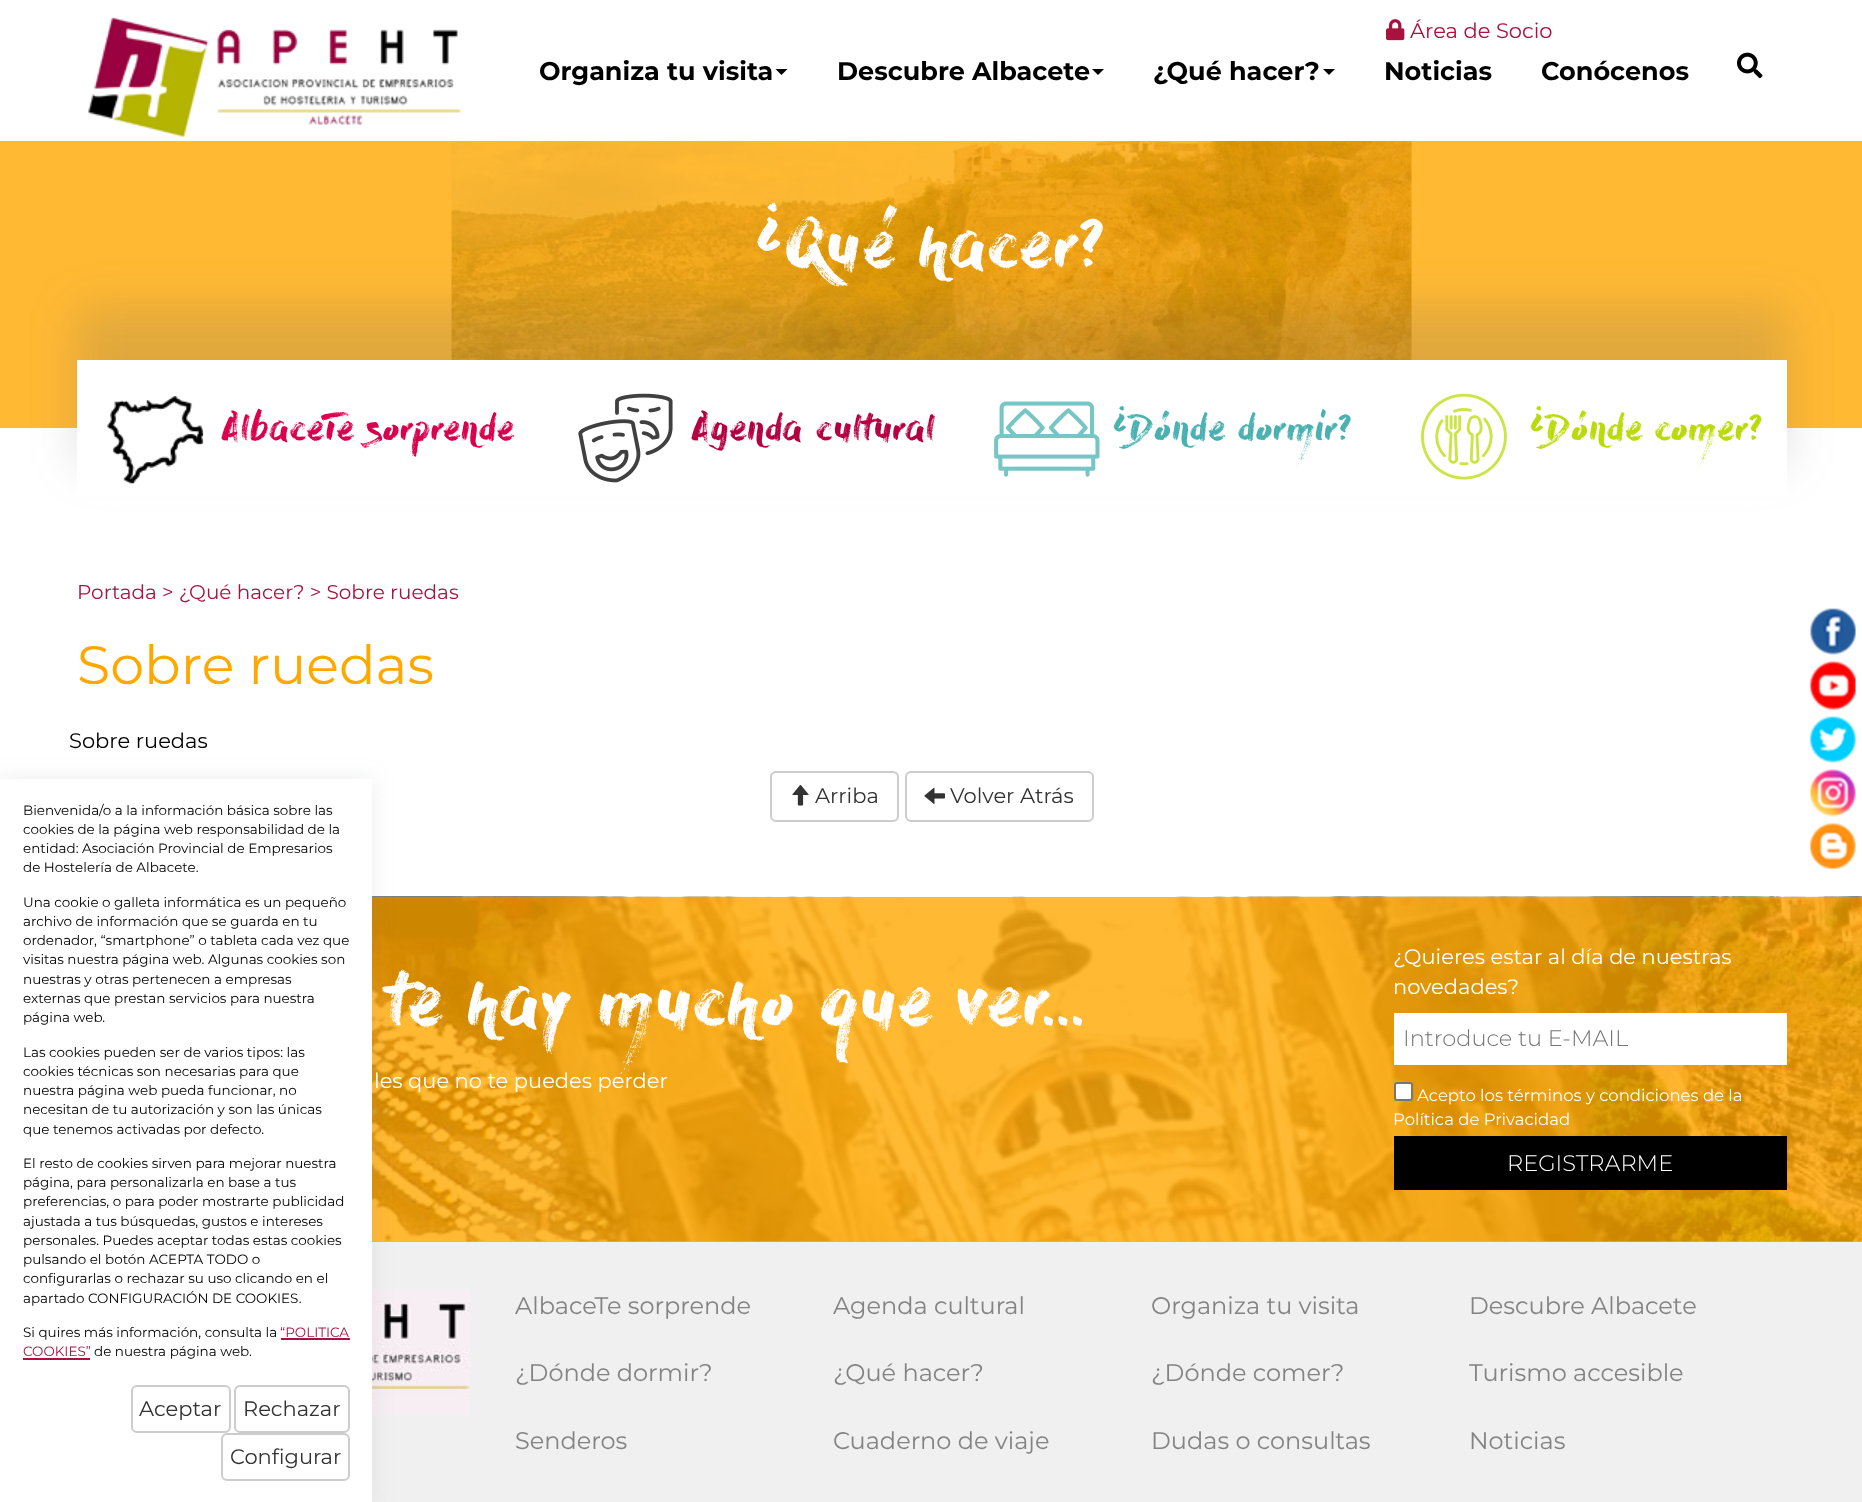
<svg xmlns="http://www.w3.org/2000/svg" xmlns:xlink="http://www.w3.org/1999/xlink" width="1862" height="1502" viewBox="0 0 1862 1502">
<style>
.cls-1{font:21px Montserrat;fill:#a9123f}
.cls-2{font:bold 25.5px Montserrat;fill:#000000}
.cls-3{font:67.5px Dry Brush;fill:#ffffff}
.cls-4{font:36px Dry Brush;fill:#d9004d}
.cls-5{font:36px Dry Brush;fill:#b50040}
.cls-6{font:36px Dry Brush;fill:#49b1b1}
.cls-7{font:36px Dry Brush;fill:#bbdb08}
.cls-8{font:20px Montserrat;fill:#a9123f}
.cls-9{font:54px Montserrat;fill:#ffa800}
.cls-10{font:21px Montserrat;fill:#000000}
.cls-11{font:21px Montserrat;fill:#333333}
.cls-12{font:72px Dry Brush;fill:#ffffff}
.cls-13{font:21px Montserrat;fill:#ffffff}
.cls-14{font:300 22.5px Montserrat;fill:#757575}
.cls-15{font:16.5px Montserrat;fill:#ffffff}
.cls-16{font:300 22.5px Montserrat;fill:#ffffff}
.cls-17{font:24px Montserrat;fill:#838383}
.cls-18{font:13.5px Montserrat;fill:#000000}
.cls-19{font:13.5px Montserrat;fill:#a9123f}
</style>
<rect width="100%" height="100%" fill="#ffffff"/>
<rect fill="#ffb933" x="372" y="1241" width="1490" height="1"/>
<rect fill="#ffb933" x="0" y="141" width="1862" height="287"/>
<image xlink:href="image0.png" x="88" y="17" width="373" height="121"/>
<image xlink:href="image1.png" x="1386" y="19" width="19" height="22"/>
<path fill="#000000" d="M775.5 69H787.5L781.5 75Z"/>
<path fill="#000000" d="M1092 69H1104L1098 75Z"/>
<path fill="#000000" d="M1323 69H1335L1329 75Z"/>
<image xlink:href="image2.png" x="1737" y="52" width="26" height="27"/>
<image xlink:href="image3.png" x="451" y="141" width="961" height="219"/>
<rect fill="#646464" fill-opacity="0.2" filter="blur(22.5px)" x="77" y="308" width="1710" height="157"/>
<rect fill="#ffffff" x="77" y="360" width="1710" height="136"/>
<image xlink:href="image4.png" x="107" y="396" width="97" height="88"/>
<image xlink:href="image5.png" x="578" y="393" width="95" height="90"/>
<image xlink:href="image6.png" x="994" y="401" width="106" height="76"/>
<image xlink:href="image7.png" x="1421" y="393" width="86" height="87"/>
<rect fill="none" stroke="#cccccc" stroke-width="2" x="771" y="772" width="127" height="49" rx="5"/>
<image xlink:href="image8.png" x="792" y="785" width="17" height="21"/>
<rect fill="none" stroke="#cccccc" stroke-width="2" x="906" y="772" width="187" height="49" rx="5"/>
<image xlink:href="image9.png" x="924" y="787" width="21" height="17"/>
<image xlink:href="image10.png" x="372" y="896" width="1490" height="346"/>
<rect fill="#ffffff" x="1394" y="1013" width="393" height="52"/>
<rect fill="#ffffff" stroke="#767676" stroke-width="2" x="1395" y="1083" width="17" height="17" rx="2"/>
<rect fill="#000000" x="1394" y="1136" width="393" height="54"/>
<rect fill="#f1f0f0" x="372" y="1242" width="1490" height="260"/>
<image xlink:href="image11.png" x="372" y="1289" width="98" height="127"/>
<image xlink:href="image12.png" x="1810" y="608" width="46" height="47"/>
<image xlink:href="image13.png" x="1810" y="661" width="46" height="49"/>
<image xlink:href="image14.png" x="1810" y="716" width="46" height="47"/>
<image xlink:href="image15.png" x="1810" y="769" width="46" height="48"/>
<image xlink:href="image16.png" x="1810" y="823" width="46" height="46"/>
<rect fill="#828486" fill-opacity="0.15" filter="blur(11px)" x="0" y="779" width="372" height="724"/>
<rect fill="#ffffff" x="0" y="779" width="372" height="723"/>
<rect fill="#a9123f" x="281" y="1338" width="69" height="2"/>
<rect fill="#a9123f" x="23" y="1358" width="67" height="2"/>
<rect fill="none" stroke="#cccccc" stroke-width="2" x="132" y="1386" width="98" height="46" rx="5"/>
<rect fill="none" stroke="#cccccc" stroke-width="2" x="235" y="1386" width="114" height="46" rx="5"/>
<rect fill="none" stroke="#cccccc" stroke-width="2" x="222" y="1434" width="127" height="46" rx="5"/>
<text class="cls-1" x="1410" y="38">Área de Socio</text>
<text class="cls-2" x="539" y="80">Organiza tu visita</text>
<text class="cls-2" x="837" y="80">Descubre Albacete</text>
<text class="cls-2" x="1153" y="80">¿Qué hacer?</text>
<text class="cls-2" x="1384" y="80">Noticias</text>
<text class="cls-2" x="1541" y="80">Conócenos</text>
<text class="cls-3" x="756" y="267">¿Qué hacer?</text>
<text class="cls-4" x="222" y="440">AlbaceTe sorprende</text>
<text class="cls-5" x="692" y="440">Agenda cultural</text>
<text class="cls-6" x="1113" y="440">¿Dónde dormir?</text>
<text class="cls-7" x="1530" y="440">¿Dónde comer?</text>
<text class="cls-8" x="77" y="599">Portada &gt; ¿Qué hacer? &gt; Sobre ruedas</text>
<text class="cls-9" x="77" y="684">Sobre ruedas</text>
<text class="cls-10" x="69" y="748">Sobre ruedas</text>
<text class="cls-11" x="815" y="803">Arriba</text>
<text class="cls-11" x="950" y="803">Volver Atrás</text>
<text class="cls-12" x="386" y="1025">te hay mucho que ver...</text>
<text class="cls-13" x="374" y="1088">les que no te puedes perder</text>
<text class="cls-13"><tspan x="1393" y="964">¿Quieres estar al día de nuestras</tspan><tspan x="1393" y="994">novedades?</tspan></text>
<text class="cls-14" x="1403" y="1046">Introduce tu E-MAIL</text>
<text class="cls-15" x="1417" y="1101">Acepto los términos y condiciones de la</text>
<text class="cls-15" x="1393" y="1125">Política de Privacidad</text>
<text class="cls-16" x="1507" y="1171">REGISTRARME</text>
<text class="cls-17" x="515" y="1314">AlbaceTe sorprende</text>
<text class="cls-17" x="833" y="1314">Agenda cultural</text>
<text class="cls-17" x="1151" y="1314">Organiza tu visita</text>
<text class="cls-17" x="1469" y="1314">Descubre Albacete</text>
<text class="cls-17" x="515" y="1381">¿Dónde dormir?</text>
<text class="cls-17" x="833" y="1381">¿Qué hacer?</text>
<text class="cls-17" x="1151" y="1381">¿Dónde comer?</text>
<text class="cls-17" x="1469" y="1381">Turismo accesible</text>
<text class="cls-17" x="515" y="1449">Senderos</text>
<text class="cls-17" x="833" y="1449">Cuaderno de viaje</text>
<text class="cls-17" x="1151" y="1449">Dudas o consultas</text>
<text class="cls-17" x="1469" y="1449">Noticias</text>
<text class="cls-18"><tspan x="23" y="815">Bienvenida/o a la información básica sobre las</tspan><tspan x="23" y="834">cookies de la página web responsabilidad de la</tspan><tspan x="23" y="853">entidad: Asociación Provincial de Empresarios</tspan><tspan x="23" y="872">de Hostelería de Albacete.</tspan></text>
<text class="cls-18"><tspan x="23" y="907">Una cookie o galleta informática es un pequeño</tspan><tspan x="23" y="926">archivo de información que se guarda en tu</tspan><tspan x="23" y="945">ordenador, “smartphone” o tableta cada vez que</tspan><tspan x="23" y="964">visitas nuestra página web. Algunas cookies son</tspan><tspan x="23" y="984">nuestras y otras pertenecen a empresas</tspan><tspan x="23" y="1003">externas que prestan servicios para nuestra</tspan><tspan x="23" y="1022">página web.</tspan></text>
<text class="cls-18"><tspan x="23" y="1057">Las cookies pueden ser de varios tipos: las</tspan><tspan x="23" y="1076">cookies técnicas son necesarias para que</tspan><tspan x="23" y="1095">nuestra página web pueda funcionar, no</tspan><tspan x="23" y="1114">necesitan de tu autorización y son las únicas</tspan><tspan x="23" y="1134">que tenemos activadas por defecto.</tspan></text>
<text class="cls-18"><tspan x="23" y="1168">El resto de cookies sirven para mejorar nuestra</tspan><tspan x="23" y="1187">página, para personalizarla en base a tus</tspan><tspan x="23" y="1206">preferencias, o para poder mostrarte publicidad</tspan><tspan x="23" y="1226">ajustada a tus búsquedas, gustos e intereses</tspan><tspan x="23" y="1245">personales. Puedes aceptar todas estas cookies</tspan><tspan x="23" y="1264">pulsando el botón ACEPTA TODO o</tspan><tspan x="23" y="1283">configurarlas o rechazar su uso clicando en el</tspan><tspan x="23" y="1303">apartado CONFIGURACIÓN DE COOKIES.</tspan></text>
<text class="cls-18" x="23" y="1337">Si quires más información, consulta la</text>
<text class="cls-19" x="280" y="1337">“POLITICA</text>
<text class="cls-19" x="23" y="1356">COOKIES”</text>
<text class="cls-18" x="94" y="1356">de nuestra página web.</text>
<text class="cls-11" x="139" y="1416">Aceptar</text>
<text class="cls-11" x="243" y="1416">Rechazar</text>
<text class="cls-11" x="230" y="1464">Configurar</text>
</svg>
